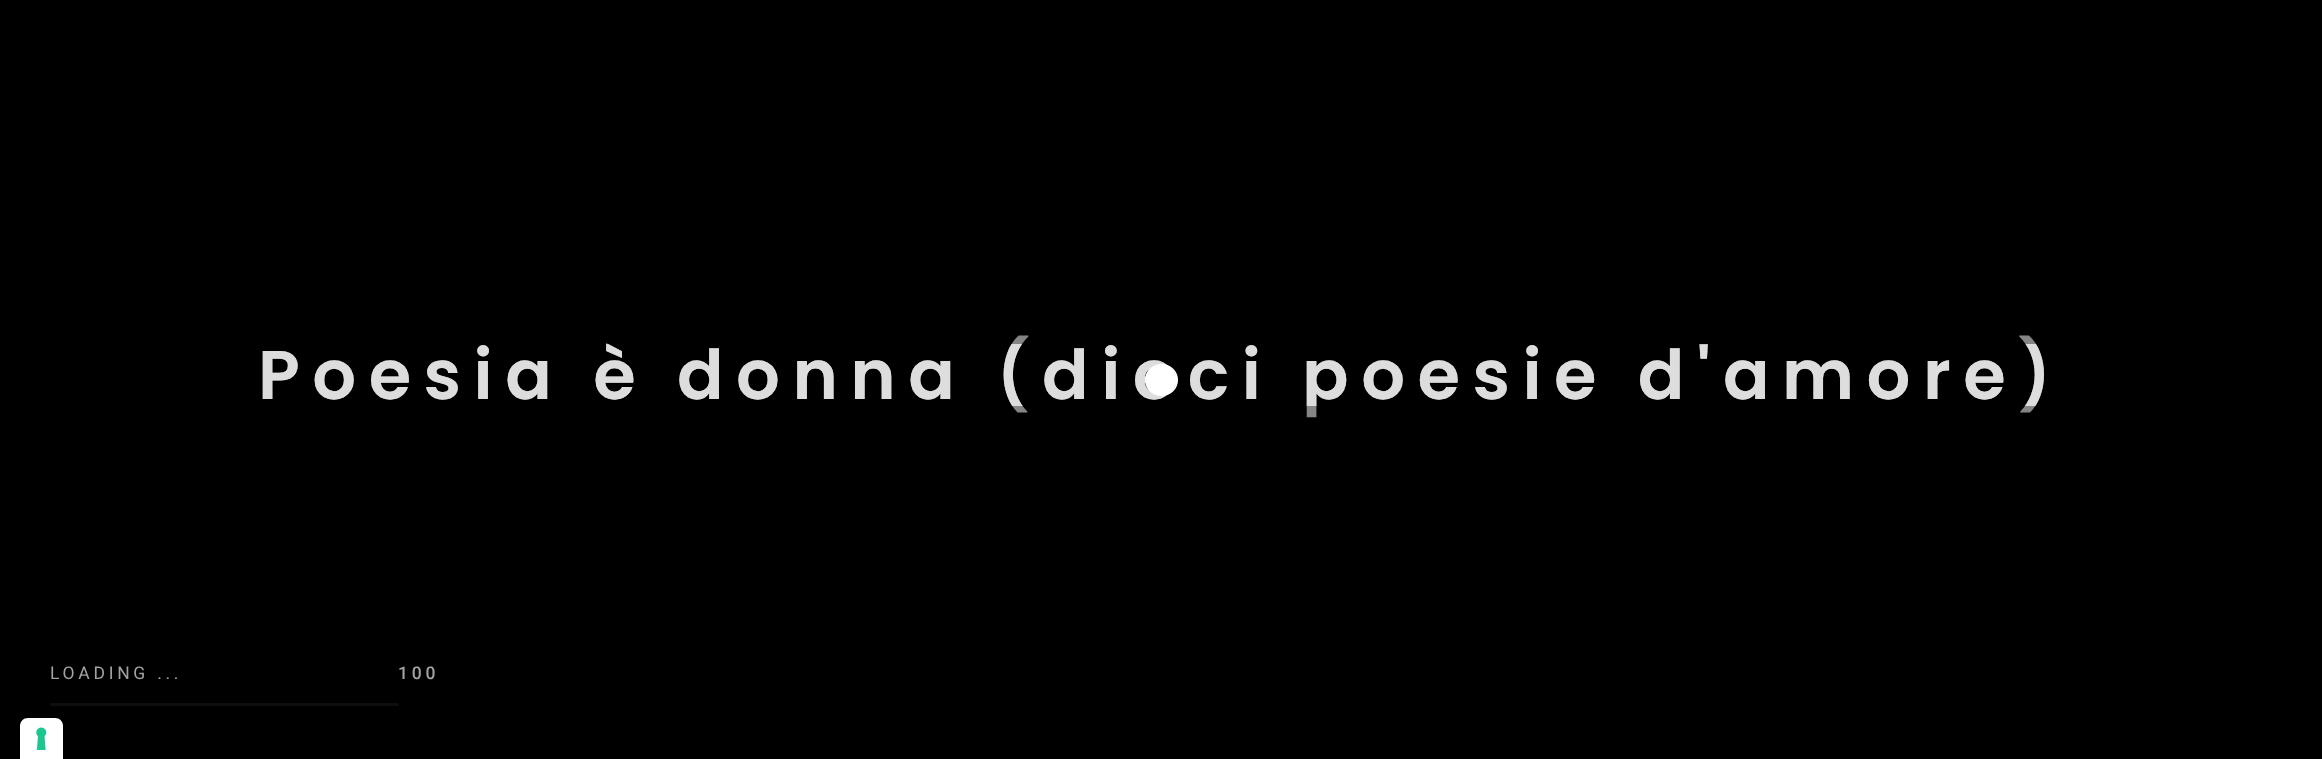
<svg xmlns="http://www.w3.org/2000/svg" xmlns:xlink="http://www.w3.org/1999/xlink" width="2322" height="759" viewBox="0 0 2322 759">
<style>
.cls-1{font:600 68.75px Poppins;letter-spacing:12.5px;fill:#858585}
.cls-2{font:600 68.75px Poppins;letter-spacing:12.5px;fill:#dddddd}
.cls-3{font:17.5px Roboto;letter-spacing:3.75px;fill:#a2a2a2}
.cls-4{font:500 17.5px Roboto;letter-spacing:3.75px;fill:#a2a2a2}
</style>
<defs>
<clipPath id="clip1"><rect x="259" y="344" width="1805" height="62"/></clipPath>
</defs>
<rect width="100%" height="100%" fill="#000000"/>
<rect fill="#0e0e0e" x="50" y="703" width="349" height="3" rx="1.5"/>
<path fill="#ffffff" d="M28 718H55C59.5 718 63 721.5 63 726V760H20V726C20 721.5 23.5 718 28 718Z"/>
<image xlink:href="image0.png" x="36" y="727" width="11" height="23"/>
<text class="cls-1" x="258" y="399">Poesia è donna (dieci poesie d'amore)</text>
<g clip-path="url(#clip1)">
<text class="cls-2" x="258" y="399">Poesia è donna (dieci poesie d'amore)</text>
</g>
<text class="cls-3" x="50" y="679">LOADING ...</text>
<text class="cls-4" x="398" y="679">100</text>
<rect fill="#ffffff" x="1145" y="364" width="33" height="32" rx="16"/>
</svg>
